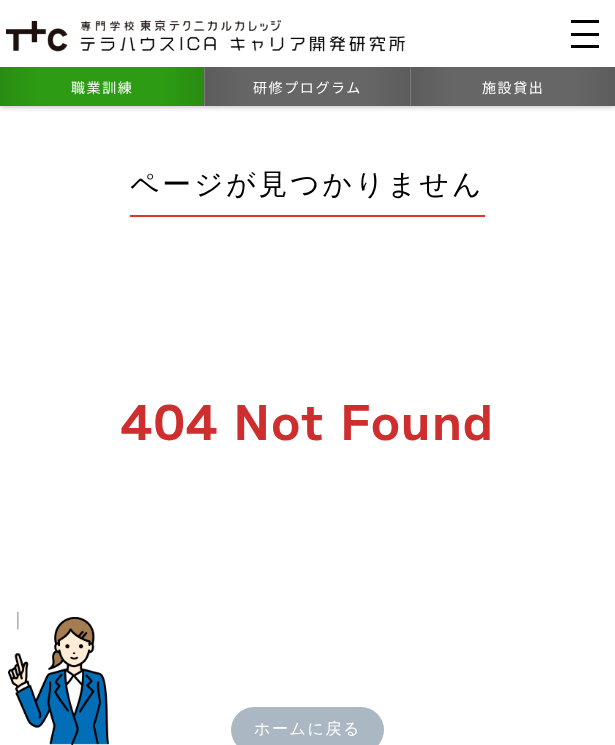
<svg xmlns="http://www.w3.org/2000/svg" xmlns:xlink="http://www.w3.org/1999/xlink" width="615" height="745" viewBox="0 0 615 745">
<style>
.cls-1{font:14px Noto Sans JP;letter-spacing:1.6px;fill:#ffffff}
.cls-2{font:500 28.75px WenQuanYi Zen Hei;letter-spacing:2.9px;fill:#000000}
.cls-3{font:bold 48px 'M PLUS 2';letter-spacing:1.6px;fill:#cf2e2e}
.cls-4{font:100 16px Noto Sans JP;letter-spacing:1.6px;fill:#000000}
.cls-5{font:500 16px WenQuanYi Zen Hei;letter-spacing:1.6px;fill:#ffffff}
</style>
<defs>
<clipPath id="clip1"><rect x="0" y="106" width="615" height="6"/></clipPath>
<linearGradient id="g1" gradientUnits="userSpaceOnUse" x1="0" y1="87" x2="204" y2="87"><stop offset="0" stop-color="#298c12"/><stop offset="0.2" stop-color="#2d9c14"/><stop offset="0.8" stop-color="#2d9c14"/><stop offset="1" stop-color="#298c12"/></linearGradient>
<linearGradient id="g2" gradientUnits="userSpaceOnUse" x1="205" y1="87" x2="410" y2="87"><stop offset="0" stop-color="#5c5c5c"/><stop offset="0.2" stop-color="#666666"/><stop offset="0.8" stop-color="#666666"/><stop offset="1" stop-color="#5c5c5c"/></linearGradient>
<linearGradient id="g3" gradientUnits="userSpaceOnUse" x1="411" y1="87" x2="615" y2="87"><stop offset="0" stop-color="#5c5c5c"/><stop offset="0.2" stop-color="#666666"/><stop offset="0.8" stop-color="#666666"/><stop offset="1" stop-color="#5c5c5c"/></linearGradient>
</defs>
<rect width="100%" height="100%" fill="#ffffff"/>
<g clip-path="url(#clip1)">
<rect fill="#aaaaaa" filter="blur(3px)" x="0" y="0" width="615" height="106"/>
</g>
<image xlink:href="image0.png" x="6" y="20" width="399" height="32"/>
<rect fill="#000000" x="571" y="20" width="28" height="3"/>
<rect fill="#000000" x="571" y="33" width="28" height="3"/>
<rect fill="#000000" x="571" y="45" width="28" height="3"/>
<rect fill="#7a7a7a" x="204" y="67" width="207" height="39"/>
<rect fill="url(#g1)" x="0" y="67" width="204" height="39"/>
<rect fill="url(#g2)" x="205" y="67" width="205" height="39"/>
<rect fill="url(#g3)" x="411" y="67" width="204" height="39"/>
<image xlink:href="image1.png" x="8" y="617" width="101" height="128"/>
<rect fill="#de3427" x="130" y="215" width="355" height="2"/>
<rect fill="#abb8c3" x="231" y="707" width="153" height="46" rx="23"/>
<text class="cls-1" x="71" y="93">職業訓練</text>
<text class="cls-1" x="253" y="93">研修プログラム</text>
<text class="cls-1" x="482" y="93">施設貸出</text>
<text class="cls-2" x="130" y="194">ページが見つかりません</text>
<text class="cls-3" x="121" y="440">404 Not Found</text>
<text class="cls-4" x="16" y="625">|</text>
<text class="cls-5" x="254" y="734">ホームに戻る</text>
</svg>
